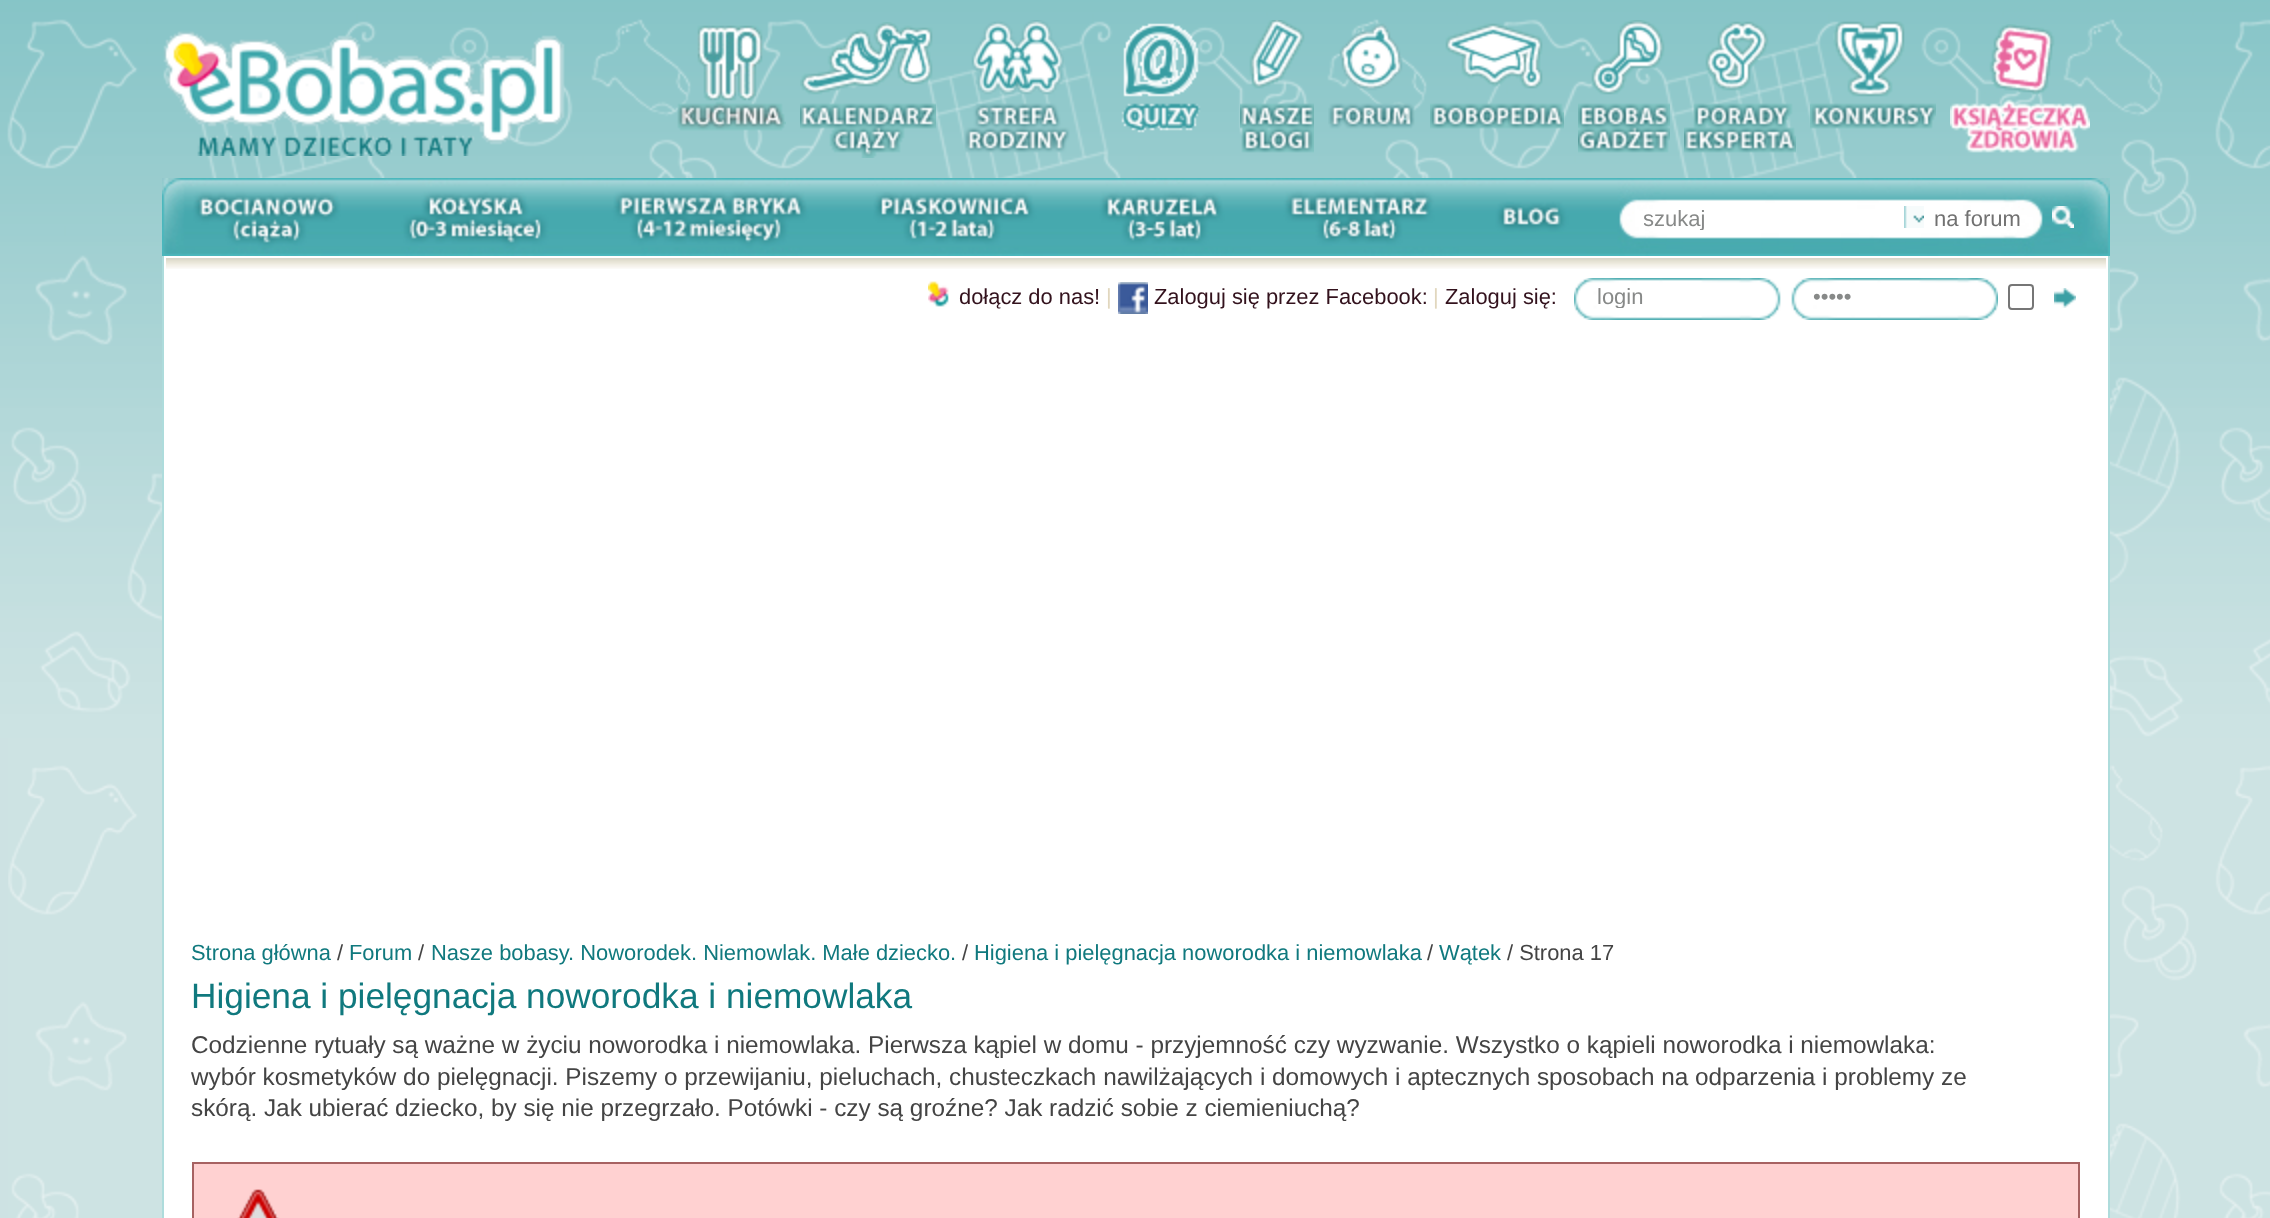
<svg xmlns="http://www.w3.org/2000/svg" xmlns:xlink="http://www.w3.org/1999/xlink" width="2270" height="1218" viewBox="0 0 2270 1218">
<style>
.cls-1{font:22px Liberation Sans;fill:#878988}
.cls-2{font:22px Liberation Sans;fill:#717171}
.cls-3{font:21.9px Liberation Sans;fill:#33121d}
.cls-4{font:21.9px Liberation Sans;fill:#e1d7be}
.cls-5{font:21.9px Liberation Sans;fill:#10797e}
.cls-6{font:21.9px Liberation Sans;fill:#444444}
.cls-7{font:35.25px Liberation Sans;fill:#10797e}
.cls-8{font:24.32px Liberation Sans;fill:#444444}
</style>
<defs>
<clipPath id="clip1"><rect x="1644" y="206" width="210" height="24"/></clipPath>
<clipPath id="clip2"><rect x="1598" y="284" width="170" height="24"/></clipPath>
</defs>
<rect width="100%" height="100%" fill="#cde2e3"/>
<image xlink:href="image0.png" x="8" y="738" width="2262" height="480"/>
<image xlink:href="image1.png" x="0" y="0" width="2270" height="738"/>
<image xlink:href="image2.png" x="163" y="31" width="402" height="125"/>
<image xlink:href="image3.png" x="677" y="25" width="109" height="106"/>
<image xlink:href="image4.png" x="800" y="22" width="136" height="136"/>
<image xlink:href="image5.png" x="963" y="20" width="107" height="133"/>
<image xlink:href="image6.png" x="1121" y="23" width="80" height="110"/>
<image xlink:href="image7.png" x="1240" y="20" width="74" height="133"/>
<image xlink:href="image8.png" x="1328" y="23" width="87" height="106"/>
<image xlink:href="image9.png" x="1430" y="23" width="134" height="106"/>
<image xlink:href="image10.png" x="1578" y="20" width="92" height="133"/>
<image xlink:href="image11.png" x="1684" y="21" width="112" height="132"/>
<image xlink:href="image12.png" x="1810" y="21" width="126" height="108"/>
<image xlink:href="image13.png" x="1950" y="24" width="140" height="129"/>
<image xlink:href="image14.png" x="162" y="178" width="1948" height="78"/>
<image xlink:href="image15.png" x="1904" y="206" width="20" height="22"/>
<image xlink:href="image16.png" x="2052" y="206" width="22" height="22"/>
<rect fill="#ffffff" x="164" y="256" width="1944" height="962"/>
<rect fill="#aedcdc" x="2108" y="256" width="2" height="962"/>
<rect fill="#aedcdc" x="162" y="256" width="2" height="962"/>
<image xlink:href="image17.png" x="166" y="258" width="1940" height="11"/>
<image xlink:href="image18.png" x="928" y="281" width="21" height="26"/>
<image xlink:href="image19.png" x="1118" y="282" width="30" height="32"/>
<image xlink:href="image20.png" x="1574" y="278" width="424" height="42"/>
<rect fill="none" stroke="#767676" stroke-width="2" x="2009" y="285" width="24" height="24" rx="3"/>
<image xlink:href="image21.png" x="2054" y="288" width="22" height="20"/>
<rect fill="#ffd1d1" x="194" y="1164" width="1884" height="54"/>
<image xlink:href="image22.png" x="237" y="1189" width="42" height="29"/>
<rect fill="none" stroke="#a76262" stroke-width="2" x="193" y="1163" width="1886" height="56"/>
<g clip-path="url(#clip1)">
<text class="cls-1" x="1643" y="226">szukaj</text>
</g>
<text class="cls-2" x="1934" y="226">na forum</text>
<text class="cls-3" x="959" y="304">dołącz do nas!</text>
<text class="cls-4" x="1106" y="304">|</text>
<text class="cls-3" x="1154" y="304">Zaloguj się przez Facebook:</text>
<text class="cls-4" x="1433" y="304">|</text>
<text class="cls-3" x="1445" y="304">Zaloguj się:</text>
<g clip-path="url(#clip2)">
<text class="cls-1" x="1597" y="304">login</text>
</g>
<text class="cls-1" x="1813" y="304">•••••</text>
<text class="cls-5" x="191" y="960">Strona główna</text>
<text class="cls-6" x="337" y="960">/</text>
<text class="cls-5" x="349" y="960">Forum</text>
<text class="cls-6" x="418" y="960">/</text>
<text class="cls-5" x="431" y="960">Nasze bobasy. Noworodek. Niemowlak. Małe dziecko.</text>
<text class="cls-6" x="962" y="960">/</text>
<text class="cls-5" x="974" y="960">Higiena i pielęgnacja noworodka i niemowlaka</text>
<text class="cls-6" x="1427" y="960">/</text>
<text class="cls-5" x="1439" y="960">Wątek</text>
<text class="cls-6" x="1507" y="960">/ Strona 17</text>
<text class="cls-7" x="191" y="1008">Higiena i pielęgnacja noworodka i niemowlaka</text>
<text class="cls-8"><tspan x="191" y="1053">Codzienne rytuały są ważne w życiu noworodka i niemowlaka. Pierwsza kąpiel w domu - przyjemność czy wyzwanie. Wszystko o kąpieli noworodka i niemowlaka:</tspan><tspan x="191" y="1085">wybór kosmetyków do pielęgnacji. Piszemy o przewijaniu, pieluchach, chusteczkach nawilżających i domowych i aptecznych sposobach na odparzenia i problemy ze</tspan><tspan x="191" y="1116">skórą. Jak ubierać dziecko, by się nie przegrzało. Potówki - czy są groźne? Jak radzić sobie z ciemieniuchą?</tspan></text>
</svg>
